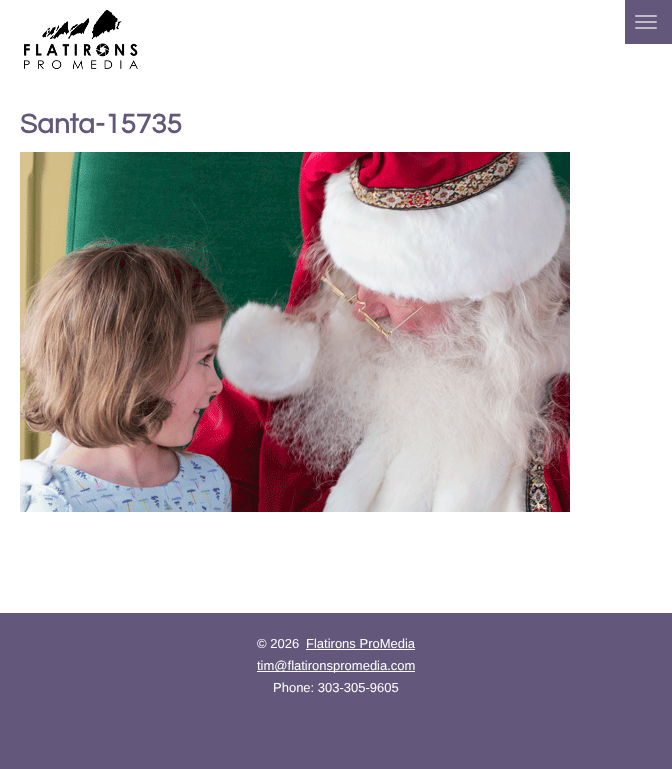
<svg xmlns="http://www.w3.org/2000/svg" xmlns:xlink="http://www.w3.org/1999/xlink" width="672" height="769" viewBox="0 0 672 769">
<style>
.cls-1{font:bold 28px Questrial;fill:#63587b}
.cls-2{font:13px Liberation Sans;fill:#ffffff}
</style>
<rect width="100%" height="100%" fill="#63587b"/>
<rect fill="#ffffff" x="0" y="0" width="672" height="613"/>
<image xlink:href="image0.png" x="24" y="10" width="114" height="60"/>
<rect fill="#63587b" x="625" y="0" width="47" height="44"/>
<rect fill="#c1bcca" x="635" y="15" width="22" height="2" rx="1"/>
<rect fill="#c1bcca" x="635" y="21" width="22" height="2" rx="1"/>
<rect fill="#c1bcca" x="635" y="27" width="22" height="2" rx="1"/>
<image xlink:href="image1.png" x="20" y="152" width="550" height="360"/>
<rect fill="#ffffff" x="306" y="649" width="109" height="1"/>
<rect fill="#ffffff" x="257" y="671" width="158" height="1"/>
<text class="cls-1" x="20" y="133">Santa-15735</text>
<text class="cls-2" x="257" y="648">© 2026</text>
<text class="cls-2" x="306" y="648">Flatirons ProMedia</text>
<text class="cls-2" x="257" y="670">tim@flatironspromedia.com</text>
<text class="cls-2" x="273" y="692">Phone: 303-305-9605</text>
</svg>
